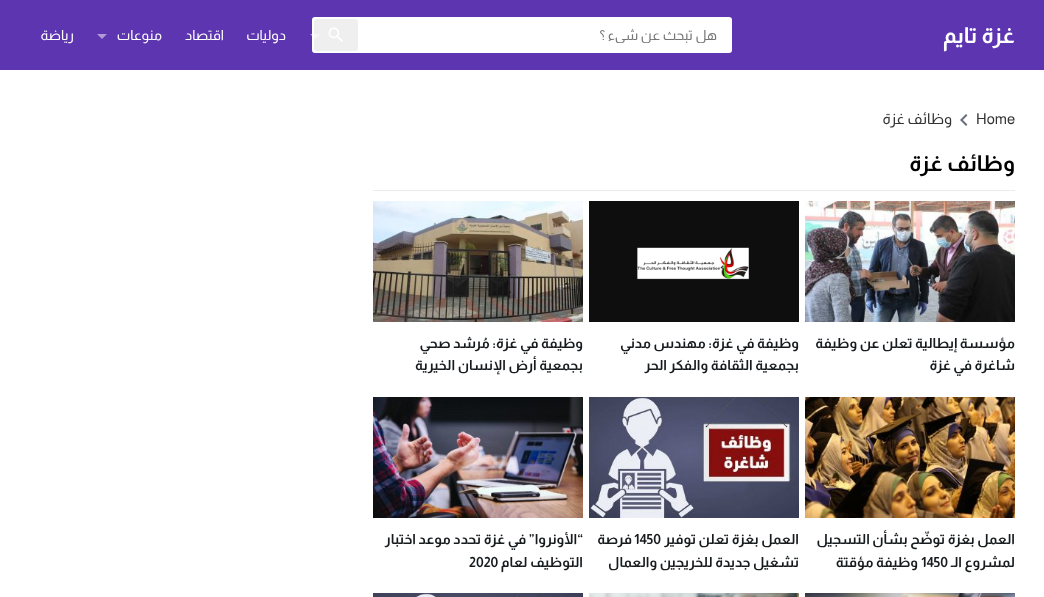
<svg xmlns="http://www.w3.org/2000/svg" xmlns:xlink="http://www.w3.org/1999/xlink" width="1044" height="597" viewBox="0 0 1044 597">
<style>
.cls-1{font:bold 22px Almarai;direction:rtl;fill:#ffffff}
.cls-2{font:14px Almarai;direction:rtl;fill:#757575}
.cls-3{font:14px Almarai;direction:rtl;fill:#ffffff}
.cls-4{font:15px Almarai;fill:#333333}
.cls-5{font:15px Almarai;direction:rtl;fill:#333333}
.cls-6{font:bold 22px Almarai;direction:rtl;fill:#000000}
.cls-7{font:bold 14px Almarai;direction:rtl;fill:#161b1e}
.cls-8{font:bold 14px Almarai;fill:#161b1e}
</style>
<defs>
<clipPath id="clip1"><rect x="317" y="27" width="410" height="16"/></clipPath>
</defs>
<rect width="100%" height="100%" fill="#ffffff"/>
<rect fill="#5e35b1" x="0" y="0" width="1044" height="70"/>
<rect fill="#ffffff" x="312" y="17" width="420" height="36" rx="3"/>
<rect fill="#efefef" x="314" y="19" width="44" height="32" rx="3"/>
<image xlink:href="image0.png" x="328" y="27" width="15" height="15"/>
<path fill="#ffffff" fill-opacity="0.5" d="M310 34H320L315 39Z"/>
<path fill="#af9ad8" d="M97 34H107L102 39Z"/>
<image xlink:href="image1.png" x="960" y="114" width="8" height="12"/>
<rect fill="#e9edf0" x="373" y="190" width="642" height="1"/>
<image xlink:href="image2.png" x="805" y="201" width="210" height="121"/>
<image xlink:href="image3.png" x="589" y="201" width="210" height="121"/>
<image xlink:href="image4.png" x="373" y="201" width="210" height="121"/>
<image xlink:href="image5.png" x="805" y="397" width="210" height="121"/>
<image xlink:href="image6.png" x="589" y="397" width="210" height="121"/>
<image xlink:href="image7.png" x="373" y="397" width="210" height="121"/>
<image xlink:href="image8.png" x="805" y="593" width="210" height="4"/>
<image xlink:href="image9.png" x="589" y="593" width="210" height="4"/>
<image xlink:href="image10.png" x="373" y="593" width="210" height="4"/>
<text class="cls-1" x="1015" y="43">غزة تايم</text>
<g clip-path="url(#clip1)">
<text class="cls-2" x="717" y="40">هل تبحث عن شيء ؟</text>
</g>
<text class="cls-3" x="286" y="40">دوليات</text>
<text class="cls-3" x="224" y="40">اقتصاد</text>
<text class="cls-3" x="162" y="40">منوعات</text>
<text class="cls-3" x="74" y="40">رياضة</text>
<text class="cls-4" x="976" y="124">Home</text>
<text class="cls-5" x="952" y="124">وظائف غزة</text>
<text class="cls-6" x="1015" y="171">وظائف غزة</text>
<text class="cls-7"><tspan x="1015" y="348">مؤسسة إيطالية تعلن عن وظيفة</tspan><tspan x="1015" y="370">شاغرة في غزة</tspan></text>
<text class="cls-7"><tspan x="799" y="348">وظيفة في غزة: مهندس مدني</tspan><tspan x="799" y="370">بجمعية الثقافة والفكر الحر</tspan></text>
<text class="cls-7"><tspan x="583" y="348">وظيفة في غزة: مُرشد صحي</tspan><tspan x="583" y="370">بجمعية أرض الإنسان الخيرية</tspan></text>
<text class="cls-7"><tspan x="1015" y="544">العمل بغزة توضّح بشأن التسجيل</tspan><tspan x="1015" y="567">لمشروع الـ</tspan></text>
<text class="cls-8" x="921" y="567">1450</text>
<text class="cls-7" x="918" y="567">وظيفة مؤقتة</text>
<text class="cls-7" x="799" y="544">العمل بغزة تعلن توفير</text>
<text class="cls-8" x="634" y="544">1450</text>
<text class="cls-7" x="632" y="544">فرصة</text>
<text class="cls-7" x="799" y="567">تشغيل جديدة للخريجين والعمال</text>
<text class="cls-7"><tspan x="583" y="544">“الأونروا” في غزة تحدد موعد اختبار</tspan><tspan x="583" y="567">التوظيف لعام</tspan></text>
<text class="cls-8" x="469" y="567">2020</text>
</svg>
